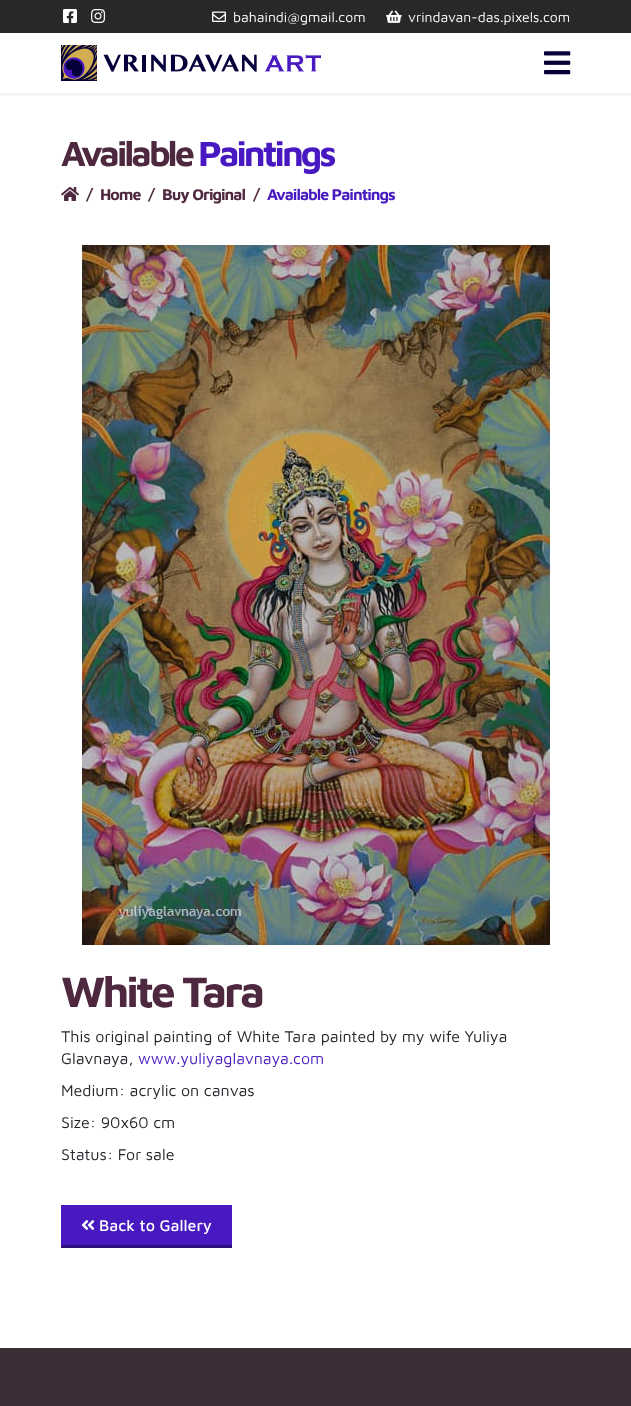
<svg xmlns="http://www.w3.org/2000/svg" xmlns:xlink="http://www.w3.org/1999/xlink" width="631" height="1406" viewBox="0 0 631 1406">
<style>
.cls-1{font:14px Maven Pro;fill:#ffffff}
.cls-2{font:bold 36px Maven Pro;letter-spacing:-3px;fill:#4e283f}
.cls-3{font:bold 36px Maven Pro;letter-spacing:-3px;fill:#4819c0}
.cls-4{font:bold 16px Maven Pro;letter-spacing:-1px;fill:#4e283f}
.cls-5{font:bold 16px Maven Pro;letter-spacing:-1px;fill:#4819c0}
.cls-6{font:bold 44px Maven Pro;letter-spacing:-3px;fill:#4e283f}
.cls-7{font:16px Maven Pro;fill:#212529}
.cls-8{font:16px Maven Pro;fill:#4819c0}
.cls-9{font:500 16px Maven Pro;fill:#ffffff}
</style>
<defs>
<clipPath id="clip1"><rect x="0" y="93" width="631" height="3"/></clipPath>
</defs>
<rect width="100%" height="100%" fill="#ffffff"/>
<rect fill="#282828" x="0" y="0" width="631" height="33"/>
<image xlink:href="image0.png" x="63" y="9" width="14" height="14"/>
<image xlink:href="image1.png" x="91" y="9" width="15" height="14"/>
<image xlink:href="image2.png" x="212" y="11" width="14" height="11"/>
<image xlink:href="image3.png" x="386" y="10" width="16" height="13"/>
<g clip-path="url(#clip1)">
<rect fill="#000000" fill-opacity="0.05" filter="blur(1.5px)" x="0" y="36" width="631" height="60"/>
</g>
<image xlink:href="image4.png" x="61" y="45" width="260" height="36"/>
<image xlink:href="image5.png" x="544" y="51" width="27" height="24"/>
<image xlink:href="image6.png" x="61" y="187" width="18" height="14"/>
<image xlink:href="image7.png" x="82" y="245" width="468" height="700"/>
<rect fill="#4819c0" x="61" y="1205" width="171" height="40"/>
<rect fill="#2f107c" x="61" y="1245" width="171" height="3"/>
<image xlink:href="image8.png" x="81" y="1220" width="14" height="10"/>
<rect fill="#3b2e36" x="0" y="1348" width="631" height="58"/>
<text class="cls-1" x="233" y="22">bahaindi@gmail.com</text>
<text class="cls-1" x="408" y="22">vrindavan-das.pixels.com</text>
<text class="cls-2" x="61" y="166">Available</text>
<text class="cls-3" x="198" y="166">Paintings</text>
<text class="cls-4" x="86" y="200">/</text>
<text class="cls-4" x="100" y="200">Home</text>
<text class="cls-4" x="148" y="200">/</text>
<text class="cls-4" x="162" y="200">Buy Original</text>
<text class="cls-4" x="253" y="200">/</text>
<text class="cls-5" x="267" y="200">Available Paintings</text>
<text class="cls-6" x="61" y="1007">White Tara</text>
<text class="cls-7"><tspan x="61" y="1042">This original painting of White Tara painted by my wife Yuliya</tspan><tspan x="61" y="1064">Glavnaya,</tspan></text>
<text class="cls-8" x="138" y="1064">www.yuliyaglavnaya.com</text>
<text class="cls-7" x="61" y="1096">Medium: acrylic on canvas</text>
<text class="cls-7" x="61" y="1128">Size: 90x60 cm</text>
<text class="cls-7" x="61" y="1160">Status: For sale</text>
<text class="cls-9" x="99" y="1231">Back to Gallery</text>
</svg>
